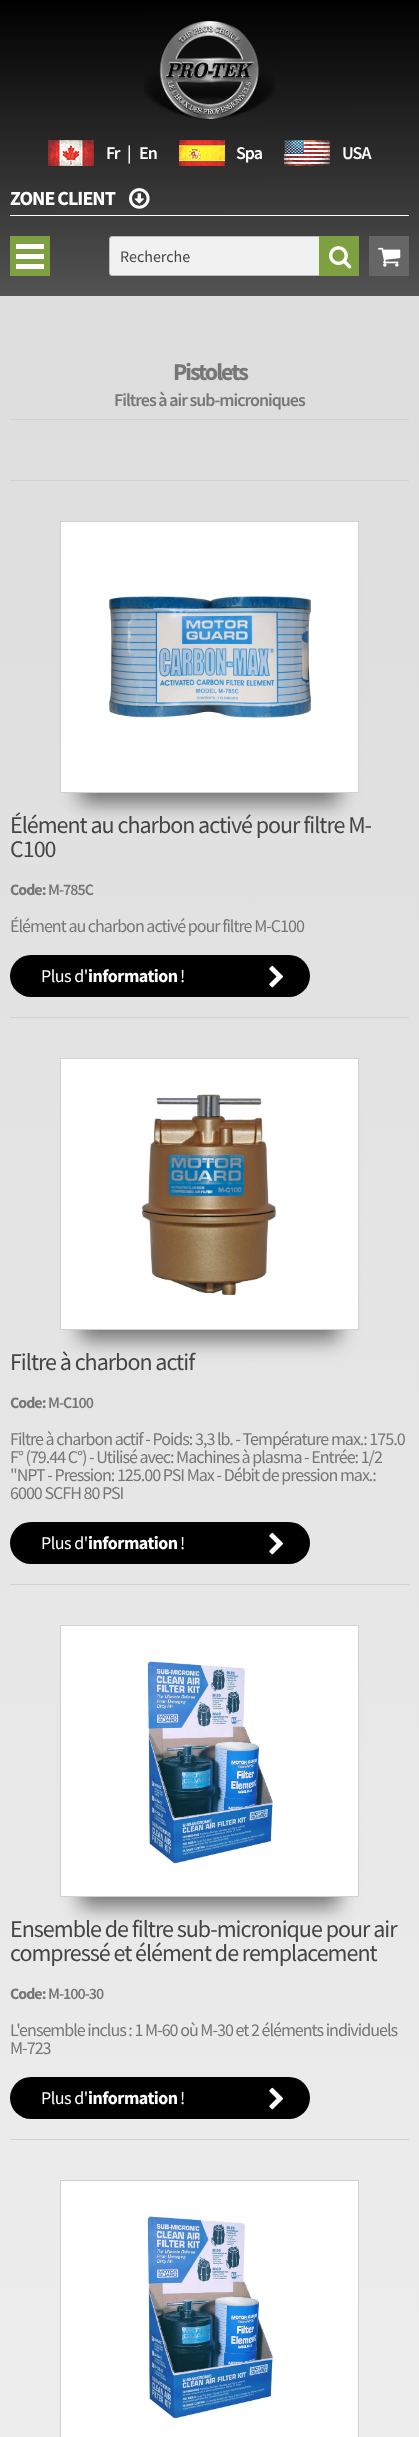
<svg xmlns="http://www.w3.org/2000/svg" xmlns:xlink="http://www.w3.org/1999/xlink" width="419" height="2437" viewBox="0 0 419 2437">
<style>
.cls-1{font:600 18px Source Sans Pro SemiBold;letter-spacing:-1px;fill:#ffffff}
.cls-2{font:bold 20px Source Sans Pro;letter-spacing:-1px;fill:#ffffff}
.cls-3{font:16px Source Sans Pro;fill:#454545}
.cls-4{font:bold 24px Source Sans Pro;letter-spacing:-2px;fill:#777777}
.cls-5{font:600 18px Source Sans Pro SemiBold;letter-spacing:-1px;fill:#777777}
.cls-6{font:24px Source Sans Pro;letter-spacing:-1px;fill:#454545}
.cls-7{font:bold 16px Source Sans Pro;letter-spacing:-1px;fill:#777777}
.cls-8{font:600 16px Source Sans Pro SemiBold;letter-spacing:-1px;fill:#777777}
.cls-9{font:18px Source Sans Pro;letter-spacing:-1px;fill:#777777}
.cls-10{font:18px Source Sans Pro;letter-spacing:-0.5px;fill:#ffffff}
.cls-11{font:bold 18px Source Sans Pro;letter-spacing:-0.5px;fill:#ffffff}
</style>
<defs>
<linearGradient id="g1" gradientUnits="userSpaceOnUse" x1="209" y1="0" x2="210" y2="296"><stop offset="0" stop-color="#000000"/><stop offset="1" stop-color="#535353"/></linearGradient>
<linearGradient id="g2" gradientUnits="userSpaceOnUse" x1="209" y1="296" x2="210" y2="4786"><stop offset="0" stop-color="#dddddd"/><stop offset="1" stop-color="#ffffff"/></linearGradient>
</defs>
<rect width="100%" height="100%" fill="#ffffff"/>
<rect fill="url(#g1)" x="0" y="0" width="419" height="296"/>
<image xlink:href="image0.png" x="144" y="21" width="131" height="99"/>
<image xlink:href="image1.png" x="48" y="140" width="46" height="26"/>
<image xlink:href="image2.png" x="179" y="140" width="46" height="26"/>
<image xlink:href="image3.png" x="284" y="140" width="46" height="26"/>
<image xlink:href="image4.png" x="129" y="188" width="21" height="21"/>
<rect fill="#ffffff" x="10" y="215" width="399" height="1"/>
<rect fill="#7fa041" x="10" y="236" width="40" height="40"/>
<rect fill="#ffffff" x="16" y="264" width="28" height="5"/>
<rect fill="#ffffff" x="16" y="254" width="28" height="5"/>
<rect fill="#ffffff" x="16" y="244" width="28" height="5"/>
<rect fill="#f1f1f1" stroke="#bbbbbb" x="109.5" y="236.5" width="249" height="39" rx="2.5"/>
<rect fill="#7fa041" x="319" y="236" width="40" height="40"/>
<image xlink:href="image5.png" x="329" y="246" width="23" height="23"/>
<rect fill="#666666" x="369" y="236" width="40" height="40"/>
<image xlink:href="image6.png" x="378" y="247" width="23" height="20"/>
<rect fill="url(#g2)" x="0" y="296" width="419" height="2141"/>
<rect fill="#d1d1d1" x="10" y="419" width="399" height="1"/>
<rect fill="#d1d1d1" x="10" y="480" width="399" height="1"/>
<rect fill="#000000" fill-opacity="0.5" filter="blur(10px)" x="80" y="571" width="259" height="232"/>
<rect fill="#ffffff" stroke="#d1d1d1" x="60.5" y="521.5" width="298" height="271"/>
<image xlink:href="image7.png" x="109" y="596" width="202" height="122"/>
<rect fill="#000000" x="10" y="955" width="300" height="42" rx="21"/>
<image xlink:href="image8.png" x="269" y="965" width="14" height="23"/>
<rect fill="#d1d1d1" x="10" y="1017" width="399" height="1"/>
<rect fill="#000000" fill-opacity="0.5" filter="blur(10px)" x="80" y="1108" width="259" height="232"/>
<rect fill="#ffffff" stroke="#d1d1d1" x="60.5" y="1058.5" width="298" height="271"/>
<image xlink:href="image9.png" x="142" y="1094" width="135" height="202"/>
<rect fill="#000000" x="10" y="1522" width="300" height="42" rx="21"/>
<image xlink:href="image8.png" x="269" y="1532" width="14" height="23"/>
<rect fill="#d1d1d1" x="10" y="1584" width="399" height="1"/>
<rect fill="#000000" fill-opacity="0.5" filter="blur(10px)" x="80" y="1675" width="259" height="232"/>
<rect fill="#ffffff" stroke="#d1d1d1" x="60.5" y="1625.5" width="298" height="271"/>
<image xlink:href="image10.png" x="147" y="1661" width="126" height="203"/>
<rect fill="#000000" x="10" y="2077" width="300" height="42" rx="21"/>
<image xlink:href="image8.png" x="269" y="2087" width="14" height="23"/>
<rect fill="#d1d1d1" x="10" y="2139" width="399" height="1"/>
<rect fill="#ffffff" stroke="#d1d1d1" x="60.5" y="2180.5" width="298" height="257"/>
<image xlink:href="image10.png" x="147" y="2216" width="126" height="203"/>
<text class="cls-1" x="106" y="159">Fr</text>
<text class="cls-1" x="127" y="159">|</text>
<text class="cls-1" x="139" y="159">En</text>
<text class="cls-1" x="236" y="159">Spa</text>
<text class="cls-1" x="342" y="159">USA</text>
<text class="cls-2" x="10" y="205">ZONE CLIENT</text>
<text class="cls-3" x="120" y="262">Recherche</text>
<text class="cls-4" x="173" y="380">Pistolets</text>
<text class="cls-5" x="114" y="406">Filtres à air sub-microniques</text>
<text class="cls-6"><tspan x="10" y="833">Élément au charbon activé pour filtre M-</tspan><tspan x="10" y="857">C100</tspan></text>
<text class="cls-7" x="10" y="895">Code:</text>
<text class="cls-8" x="48" y="895">M-785C</text>
<text class="cls-9" x="10" y="932">Élément au charbon activé pour filtre M-C100</text>
<text class="cls-10" x="41" y="982">Plus d'</text>
<text class="cls-11" x="88" y="982">information</text>
<text class="cls-10" x="180" y="982">!</text>
<text class="cls-6" x="10" y="1370">Filtre à charbon actif</text>
<text class="cls-7" x="10" y="1408">Code:</text>
<text class="cls-8" x="48" y="1408">M-C100</text>
<text class="cls-9"><tspan x="10" y="1445">Filtre à charbon actif - Poids: 3,3 lb. - Température max.: 175.0</tspan><tspan x="10" y="1463">F° (79.44 C°) - Utilisé avec: Machines à plasma - Entrée: 1/2</tspan><tspan x="10" y="1481">"NPT - Pression: 125.00 PSI Max - Débit de pression max.:</tspan><tspan x="10" y="1499">6000 SCFH 80 PSI</tspan></text>
<text class="cls-10" x="41" y="1549">Plus d'</text>
<text class="cls-11" x="88" y="1549">information</text>
<text class="cls-10" x="180" y="1549">!</text>
<text class="cls-6"><tspan x="10" y="1937">Ensemble de filtre sub-micronique pour air</tspan><tspan x="10" y="1961">compressé et élément de remplacement</tspan></text>
<text class="cls-7" x="10" y="1999">Code:</text>
<text class="cls-8" x="48" y="1999">M-100-30</text>
<text class="cls-9"><tspan x="10" y="2036">L'ensemble inclus : 1 M-60 où M-30 et 2 éléments individuels</tspan><tspan x="10" y="2054">M-723</tspan></text>
<text class="cls-10" x="41" y="2104">Plus d'</text>
<text class="cls-11" x="88" y="2104">information</text>
<text class="cls-10" x="180" y="2104">!</text>
</svg>
